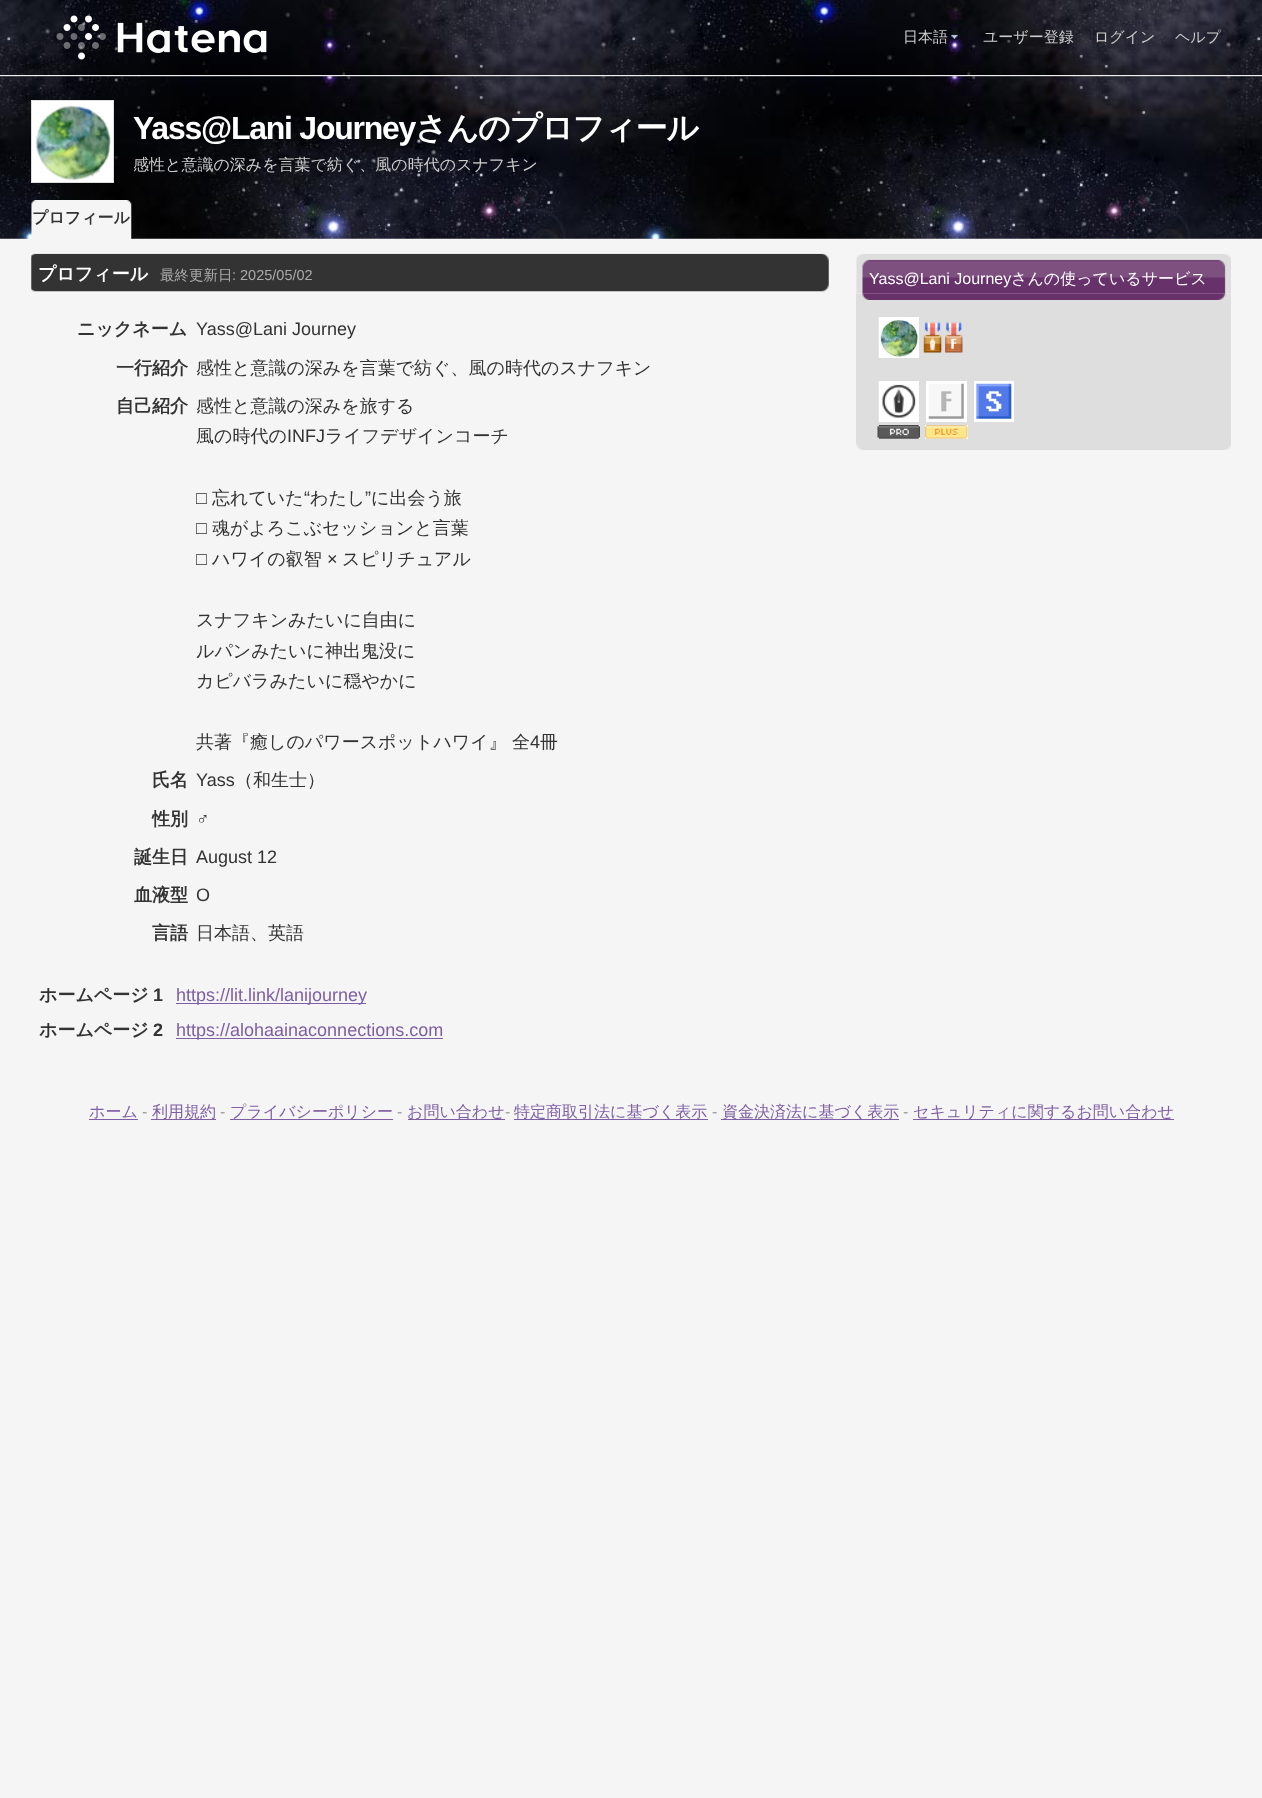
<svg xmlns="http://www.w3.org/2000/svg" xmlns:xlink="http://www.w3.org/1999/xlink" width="1262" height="1798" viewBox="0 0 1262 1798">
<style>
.cls-1{font:500 15px WenQuanYi Zen Hei;fill:#cdcdcd}
.cls-2{font:bold 32px Liberation Sans;letter-spacing:-1.25px;fill:#ffffff}
.cls-3{font:bold 32px WenQuanYi Zen Hei;letter-spacing:-1.25px;fill:#ffffff}
.cls-4{font:500 16px WenQuanYi Zen Hei;fill:#cdcdcd}
.cls-5{font:bold 16px WenQuanYi Zen Hei;fill:#333333}
.cls-6{font:bold 18px WenQuanYi Zen Hei;fill:#ffffff}
.cls-7{font:500 14.5px WenQuanYi Zen Hei;fill:#aaaaaa}
.cls-8{font:14.5px Liberation Sans;fill:#aaaaaa}
.cls-9{font:bold 18px WenQuanYi Zen Hei;fill:#333333}
.cls-10{font:18px Liberation Sans;fill:#333333}
.cls-11{font:500 18px WenQuanYi Zen Hei;fill:#333333}
.cls-12{font:bold 18px Liberation Sans;fill:#333333}
.cls-13{font:18px Liberation Sans;fill:#7e5fa4}
.cls-14{font:16px Liberation Sans;fill:#ffffff}
.cls-15{font:500 16px WenQuanYi Zen Hei;fill:#ffffff}
.cls-16{font:500 16px WenQuanYi Zen Hei;fill:#7e5fa4}
.cls-17{font:16px Liberation Sans;fill:#999999}
</style>
<rect width="100%" height="100%" fill="#f5f5f5"/>
<image xlink:href="image3.png" x="0" y="76" width="1262" height="163"/>
<image xlink:href="image0.png" x="0" y="0" width="1262" height="77"/>
<rect fill="#f0f0f0" x="0" y="75" width="1262" height="1"/>
<image xlink:href="image1.png" x="56" y="15" width="211" height="45"/>
<image xlink:href="image2.png" x="951" y="34" width="7" height="5"/>
<rect fill="#ffffff" stroke="#dedede" x="31.5" y="100.5" width="82" height="82"/>
<image xlink:href="image4.png" x="36" y="105" width="75" height="76"/>
<image xlink:href="image5.png" x="31" y="200" width="101" height="39"/>
<rect fill="#f5f5f5" x="31" y="238" width="100" height="1"/>
<image xlink:href="image6.png" x="31" y="253" width="798" height="39"/>
<rect fill="#7e5fa4" x="176" y="1003" width="190" height="1"/>
<rect fill="#7e5fa4" x="176" y="1038" width="267" height="1"/>
<image xlink:href="image7.png" x="856" y="444" width="375" height="6"/>
<image xlink:href="image8.png" x="856" y="254" width="375" height="40"/>
<rect fill="#dedede" x="856" y="294" width="375" height="150"/>
<image xlink:href="image9.png" x="862" y="293" width="364" height="7"/>
<rect fill="#ffffff" x="879" y="317" width="40" height="41"/>
<image xlink:href="image10.png" x="878" y="317" width="40" height="41"/>
<image xlink:href="image11.png" x="923" y="322" width="19" height="31"/>
<image xlink:href="image12.png" x="945" y="322" width="18" height="31"/>
<rect fill="#ffffff" x="879" y="381" width="40" height="41"/>
<image xlink:href="image13.png" x="878" y="381" width="38" height="40"/>
<rect fill="#ffffff" x="878" y="425" width="42" height="14"/>
<image xlink:href="image14.png" x="877" y="425" width="43" height="14"/>
<rect fill="#ffffff" x="926" y="381" width="41" height="41"/>
<image xlink:href="image15.png" x="928" y="383" width="36" height="36"/>
<rect fill="#ffffff" x="925" y="425" width="43" height="14"/>
<image xlink:href="image16.png" x="925" y="425" width="43" height="14"/>
<rect fill="#ffffff" x="974" y="381" width="40" height="41"/>
<image xlink:href="image17.png" x="976" y="383" width="36" height="36"/>
<rect fill="#7e5fa4" x="89" y="1119" width="49" height="1"/>
<rect fill="#7e5fa4" x="151" y="1119" width="65" height="1"/>
<rect fill="#7e5fa4" x="230" y="1119" width="163" height="1"/>
<rect fill="#7e5fa4" x="408" y="1119" width="97" height="1"/>
<rect fill="#7e5fa4" x="514" y="1119" width="194" height="1"/>
<rect fill="#7e5fa4" x="721" y="1119" width="178" height="1"/>
<rect fill="#7e5fa4" x="913" y="1119" width="261" height="1"/>
<text class="cls-1" x="903" y="42">日本語</text>
<text class="cls-1" x="983" y="42">ユーザー登録</text>
<text class="cls-1" x="1094" y="42">ログイン</text>
<text class="cls-1" x="1175" y="42">ヘルプ</text>
<text class="cls-2" x="133" y="139">Yass@Lani Journey</text>
<text class="cls-3" x="415" y="139">さんのプロフィール</text>
<text class="cls-4" x="133" y="170">感性と意識の深みを言葉で紡ぐ、風の時代のスナフキン</text>
<text class="cls-5" x="32" y="223">プロフィール</text>
<text class="cls-6" x="38" y="280">プロフィール</text>
<text class="cls-7" x="160" y="280">最終更新日</text>
<text class="cls-8" x="232" y="280">: 2025/05/02</text>
<text class="cls-9" x="77" y="335">ニックネーム</text>
<text class="cls-10" x="196" y="335">Yass@Lani Journey</text>
<text class="cls-9" x="116" y="374">一行紹介</text>
<text class="cls-11" x="196" y="374">感性と意識の深みを言葉で紡ぐ、風の時代のスナフキン</text>
<text class="cls-9" x="116" y="412">自己紹介</text>
<text class="cls-11"><tspan x="196" y="412">感性と意識の深みを旅する</tspan><tspan x="196" y="442">風の時代の</tspan></text>
<text class="cls-10" x="287" y="442">INFJ</text>
<text class="cls-11" x="325" y="442">ライフデザインコーチ</text>
<text class="cls-10" x="196" y="504">□</text>
<text class="cls-11" x="212" y="504">忘れていた</text>
<text class="cls-10" x="304" y="504">“</text>
<text class="cls-11" x="310" y="504">わたし</text>
<text class="cls-10" x="365" y="504">”</text>
<text class="cls-11" x="371" y="504">に出会う旅</text>
<text class="cls-10" x="196" y="534">□</text>
<text class="cls-11" x="212" y="534">魂がよろこぶセッションと言葉</text>
<text class="cls-10" x="196" y="565">□</text>
<text class="cls-11" x="212" y="565">ハワイの叡智</text>
<text class="cls-10" x="327" y="565">×</text>
<text class="cls-11" x="342" y="565">スピリチュアル</text>
<text class="cls-11"><tspan x="196" y="626">スナフキンみたいに自由に</tspan><tspan x="196" y="657">ルパンみたいに神出鬼没に</tspan><tspan x="196" y="687">カピバラみたいに穏やかに</tspan></text>
<text class="cls-11" x="196" y="748">共著『癒しのパワースポットハワイ』 全</text>
<text class="cls-10" x="530" y="748">4</text>
<text class="cls-11" x="540" y="748">冊</text>
<text class="cls-9" x="152" y="786">氏名</text>
<text class="cls-10" x="196" y="786">Yass</text>
<text class="cls-11" x="235" y="786">（和生士）</text>
<text class="cls-9" x="152" y="825">性別</text>
<text class="cls-10" x="196" y="825">♂</text>
<text class="cls-9" x="134" y="863">誕生日</text>
<text class="cls-10" x="196" y="863">August 12</text>
<text class="cls-9" x="134" y="901">血液型</text>
<text class="cls-10" x="196" y="901">O</text>
<text class="cls-9" x="152" y="939">言語</text>
<text class="cls-11" x="196" y="939">日本語、英語</text>
<text class="cls-9" x="39" y="1001">ホームページ</text>
<text class="cls-12" x="153" y="1001">1</text>
<text class="cls-13" x="176" y="1001">https://lit.link/lanijourney</text>
<text class="cls-9" x="39" y="1036">ホームページ</text>
<text class="cls-12" x="153" y="1036">2</text>
<text class="cls-13" x="176" y="1036">https://alohaainaconnections.com</text>
<text class="cls-14" x="869" y="284">Yass@Lani Journey</text>
<text class="cls-15" x="1011" y="284">さんの使っているサービス</text>
<text class="cls-16" x="89" y="1117">ホーム</text>
<text class="cls-17" x="142" y="1117">-</text>
<text class="cls-16" x="152" y="1117">利用規約</text>
<text class="cls-17" x="220" y="1117">-</text>
<text class="cls-16" x="230" y="1117">プライバシーポリシー</text>
<text class="cls-17" x="397" y="1117">-</text>
<text class="cls-16" x="407" y="1117">お問い合わせ</text>
<text class="cls-17" x="505" y="1117">-</text>
<text class="cls-16" x="514" y="1117">特定商取引法に基づく表示</text>
<text class="cls-17" x="712" y="1117">-</text>
<text class="cls-16" x="722" y="1117">資金決済法に基づく表示</text>
<text class="cls-17" x="903" y="1117">-</text>
<text class="cls-16" x="913" y="1117">セキュリティに関するお問い合わせ</text>
</svg>
